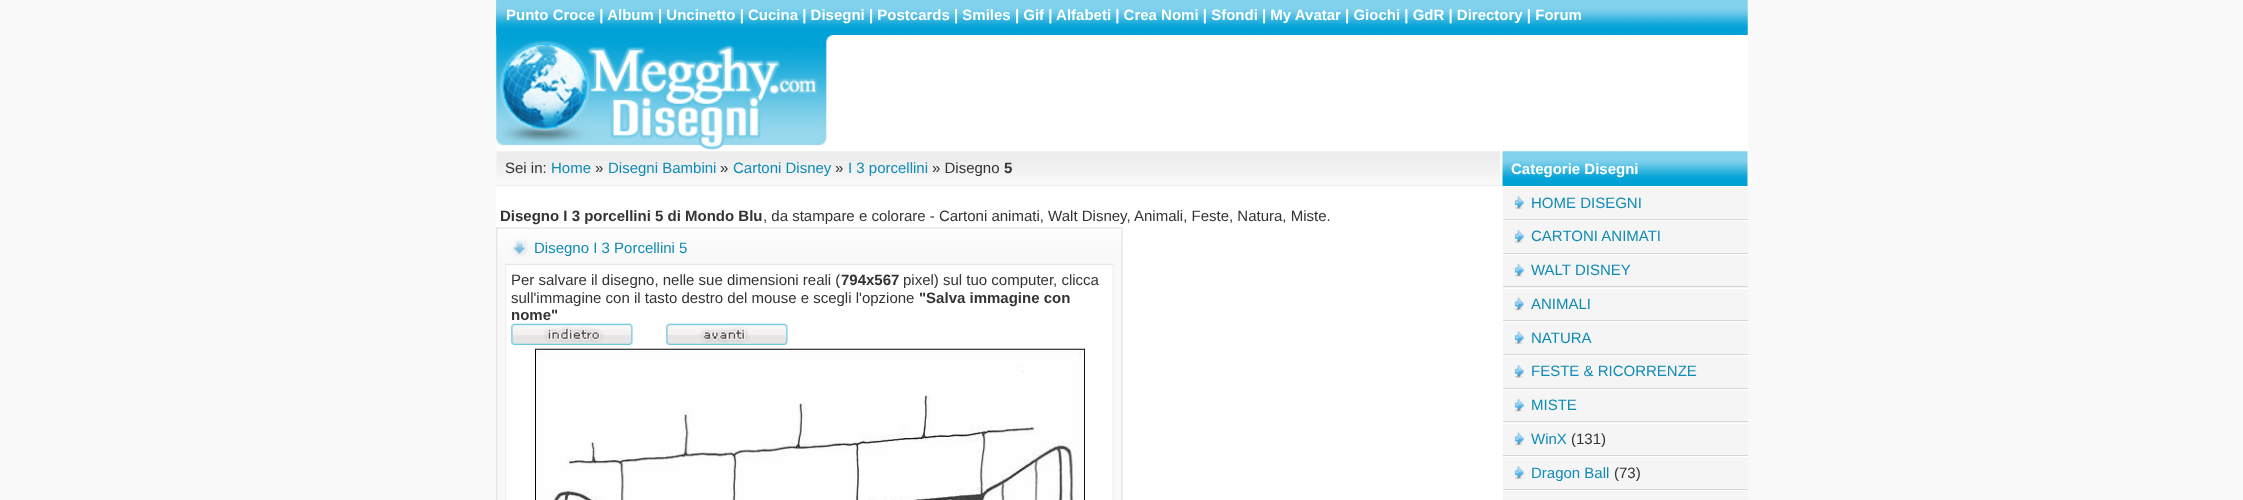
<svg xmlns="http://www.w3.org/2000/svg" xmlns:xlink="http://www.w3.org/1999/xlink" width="2243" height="500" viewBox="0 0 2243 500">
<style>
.cls-1{font:bold 15px Liberation Sans;fill:#ffffff}
.cls-2{font:15px Liberation Sans;fill:#333333}
.cls-3{font:15px Liberation Sans;fill:#0f8bb5}
.cls-4{font:bold 15px Liberation Sans;fill:#333333}
</style>
<rect width="100%" height="100%" fill="#f9f9f9"/>
<rect fill="#ffffff" x="496" y="0" width="1252" height="500"/>
<image xlink:href="image0.png" x="496" y="0" width="1252" height="35"/>
<image xlink:href="image1.png" x="496" y="0" width="1252" height="35"/>
<image xlink:href="image2.png" x="496" y="35" width="337" height="115"/>
<image xlink:href="image3.png" x="496" y="151" width="1004" height="36"/>
<image xlink:href="image4.png" x="496" y="227" width="627" height="273"/>
<image xlink:href="image5.png" x="496" y="227" width="627" height="38"/>
<image xlink:href="image6.png" x="496" y="265" width="627" height="235"/>
<image xlink:href="image7.png" x="511" y="323" width="122" height="22"/>
<image xlink:href="image8.png" x="666" y="323" width="122" height="22"/>
<image xlink:href="image9.png" x="535" y="348" width="550" height="152"/>
<image xlink:href="image10.png" x="1502" y="151" width="246" height="36"/>
<rect fill="#f5f5f5" x="1503" y="187" width="245" height="313"/>
<image xlink:href="image11.png" x="1514" y="196" width="10" height="13"/>
<rect fill="#ffffff" x="1503" y="186" width="245" height="1"/>
<rect fill="#d6d6d6" x="1503" y="219" width="245" height="1"/>
<image xlink:href="image12.png" x="1514" y="230" width="10" height="13"/>
<rect fill="#ffffff" x="1503" y="220" width="245" height="1"/>
<rect fill="#d6d6d6" x="1503" y="253" width="245" height="1"/>
<image xlink:href="image13.png" x="1514" y="263" width="10" height="14"/>
<rect fill="#ffffff" x="1503" y="254" width="245" height="1"/>
<rect fill="#d6d6d6" x="1503" y="286" width="245" height="1"/>
<image xlink:href="image14.png" x="1514" y="297" width="10" height="14"/>
<rect fill="#ffffff" x="1503" y="288" width="245" height="1"/>
<rect fill="#d6d6d6" x="1503" y="320" width="245" height="1"/>
<image xlink:href="image11.png" x="1514" y="331" width="10" height="13"/>
<rect fill="#ffffff" x="1503" y="321" width="245" height="1"/>
<rect fill="#d6d6d6" x="1503" y="354" width="245" height="1"/>
<image xlink:href="image12.png" x="1514" y="365" width="10" height="13"/>
<rect fill="#ffffff" x="1503" y="355" width="245" height="1"/>
<rect fill="#d6d6d6" x="1503" y="388" width="245" height="1"/>
<image xlink:href="image13.png" x="1514" y="398" width="10" height="14"/>
<rect fill="#ffffff" x="1503" y="389" width="245" height="1"/>
<rect fill="#d6d6d6" x="1503" y="421" width="245" height="1"/>
<image xlink:href="image14.png" x="1514" y="432" width="10" height="14"/>
<rect fill="#ffffff" x="1503" y="423" width="245" height="1"/>
<rect fill="#d6d6d6" x="1503" y="455" width="245" height="1"/>
<image xlink:href="image11.png" x="1514" y="466" width="10" height="13"/>
<rect fill="#ffffff" x="1503" y="456" width="245" height="1"/>
<rect fill="#d6d6d6" x="1503" y="489" width="245" height="1"/>
<rect fill="#ffffff" x="1503" y="490" width="245" height="1"/>
<text class="cls-1" x="506" y="20">Punto Croce | Album | Uncinetto | Cucina | Disegni | Postcards | Smiles | Gif | Alfabeti | Crea Nomi | Sfondi | My Avatar | Giochi | GdR | Directory | Forum</text>
<text class="cls-2" x="505" y="173">Sei in:</text>
<text class="cls-3" x="551" y="173">Home</text>
<text class="cls-2" x="595" y="173">»</text>
<text class="cls-3" x="608" y="173">Disegni Bambini</text>
<text class="cls-2" x="720" y="173">»</text>
<text class="cls-3" x="733" y="173">Cartoni Disney</text>
<text class="cls-2" x="835" y="173">»</text>
<text class="cls-3" x="848" y="173">I 3 porcellini</text>
<text class="cls-2" x="932" y="173">» Disegno</text>
<text class="cls-4" x="1004" y="173">5</text>
<text class="cls-4" x="500" y="221">Disegno I 3 porcellini 5 di Mondo Blu</text>
<text class="cls-2" x="763" y="221">, da stampare e colorare - Cartoni animati, Walt Disney, Animali, Feste, Natura, Miste.</text>
<text class="cls-3" x="534" y="253">Disegno I 3 Porcellini 5</text>
<text class="cls-2" x="511" y="285">Per salvare il disegno, nelle sue dimensioni reali (</text>
<text class="cls-4" x="841" y="285">794x567</text>
<text class="cls-2" x="903" y="285">pixel) sul tuo computer, clicca</text>
<text class="cls-2" x="511" y="303">sull'immagine con il tasto destro del mouse e scegli l'opzione</text>
<text class="cls-4" x="919" y="303">"Salva immagine con</text>
<text class="cls-4" x="511" y="320">nome"</text>
<text class="cls-1" x="1511" y="174">Categorie Disegni</text>
<text class="cls-3" x="1531" y="208">HOME DISEGNI</text>
<text class="cls-3" x="1531" y="241">CARTONI ANIMATI</text>
<text class="cls-3" x="1531" y="275">WALT DISNEY</text>
<text class="cls-3" x="1531" y="309">ANIMALI</text>
<text class="cls-3" x="1531" y="343">NATURA</text>
<text class="cls-3" x="1531" y="376">FESTE &amp; RICORRENZE</text>
<text class="cls-3" x="1531" y="410">MISTE</text>
<text class="cls-3" x="1531" y="444">WinX</text>
<text class="cls-2" x="1571" y="444">(131)</text>
<text class="cls-3" x="1531" y="478">Dragon Ball</text>
<text class="cls-2" x="1614" y="478">(73)</text>
</svg>
